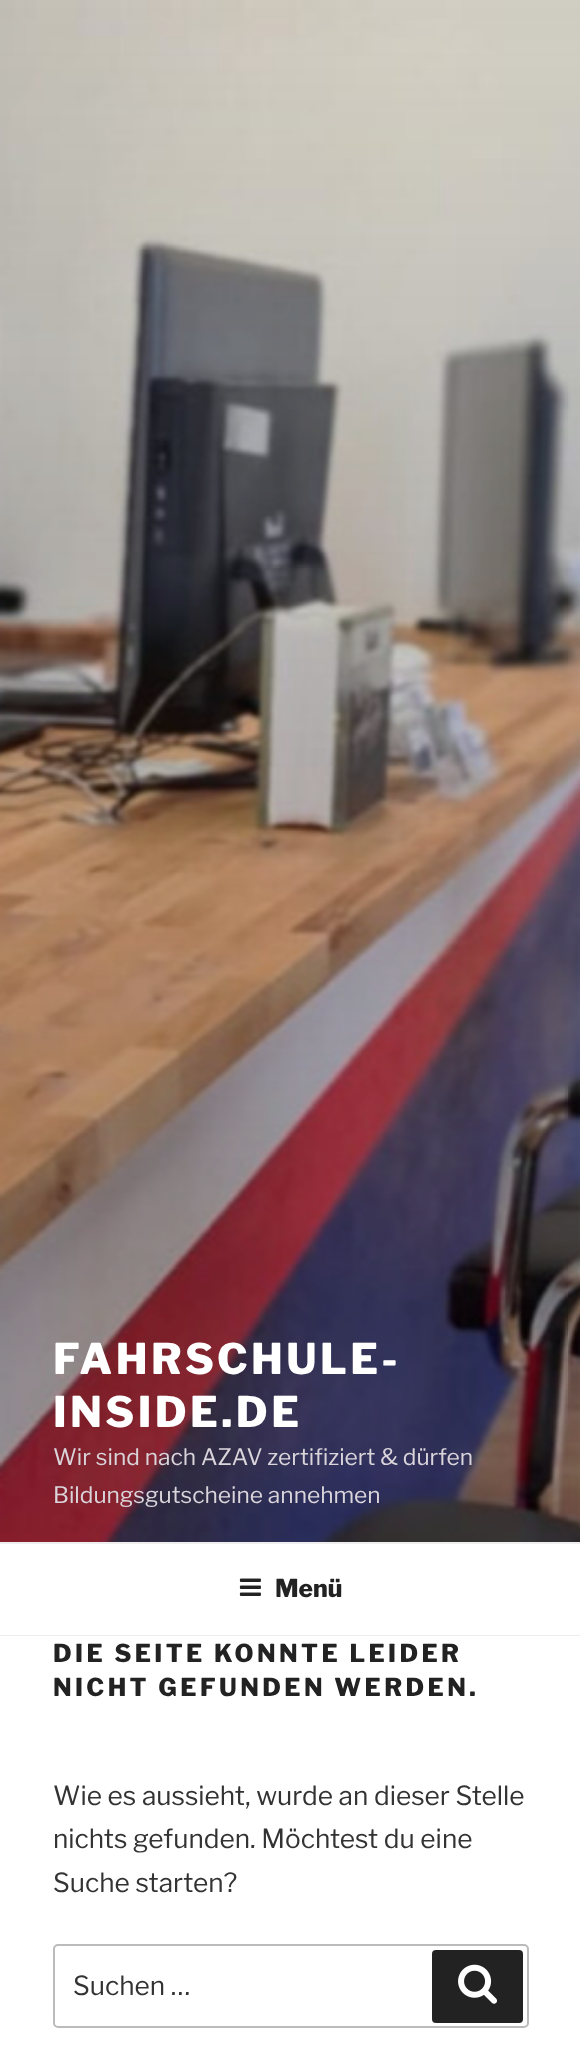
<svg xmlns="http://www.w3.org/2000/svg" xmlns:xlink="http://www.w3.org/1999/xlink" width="580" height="2053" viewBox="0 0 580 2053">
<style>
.cls-1{font:100 42px Libre Franklin;letter-spacing:3.4px;fill:#ffffff}
.cls-2{font:100 22.75px 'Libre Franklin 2';fill:#dad5db}
.cls-3{font:100 24.5px Libre Franklin;fill:#222222}
.cls-4{font:100 24.5px Libre Franklin;letter-spacing:3.4px;fill:#222222}
.cls-5{font:100 26.25px 'Libre Franklin 2';fill:#333333}
</style>
<rect width="100%" height="100%" fill="#ffffff"/>
<image xlink:href="image0.png" x="0" y="0" width="580" height="1542"/>
<rect fill="#eeeeee" x="0" y="1542" width="580" height="2"/>
<rect fill="#eeeeee" x="0" y="1635" width="580" height="1"/>
<image xlink:href="image1.png" x="239" y="1578" width="22" height="18"/>
<rect fill="none" stroke="#bbbbbb" stroke-width="2" x="54" y="1945" width="474" height="82" rx="4"/>
<rect fill="#222222" x="432" y="1950" width="91" height="73" rx="4"/>
<image xlink:href="image2.png" x="458" y="1964" width="39" height="40"/>
<text class="cls-1"><tspan x="53" y="1374">FAHRSCHULE-</tspan><tspan x="53" y="1427">INSIDE.DE</tspan></text>
<text class="cls-2"><tspan x="53" y="1465">Wir sind nach AZAV zertifiziert &amp; dürfen</tspan><tspan x="53" y="1503">Bildungsgutscheine annehmen</tspan></text>
<text class="cls-3" x="275" y="1597">Menü</text>
<text class="cls-4"><tspan x="53" y="1662">DIE SEITE KONNTE LEIDER</tspan><tspan x="53" y="1696">NICHT GEFUNDEN WERDEN.</tspan></text>
<text class="cls-5"><tspan x="53" y="1805">Wie es aussieht, wurde an dieser Stelle</tspan><tspan x="53" y="1848">nichts gefunden. Möchtest du eine</tspan><tspan x="53" y="1892">Suche starten?</tspan></text>
<text class="cls-5" x="73" y="1995">Suchen …</text>
</svg>
